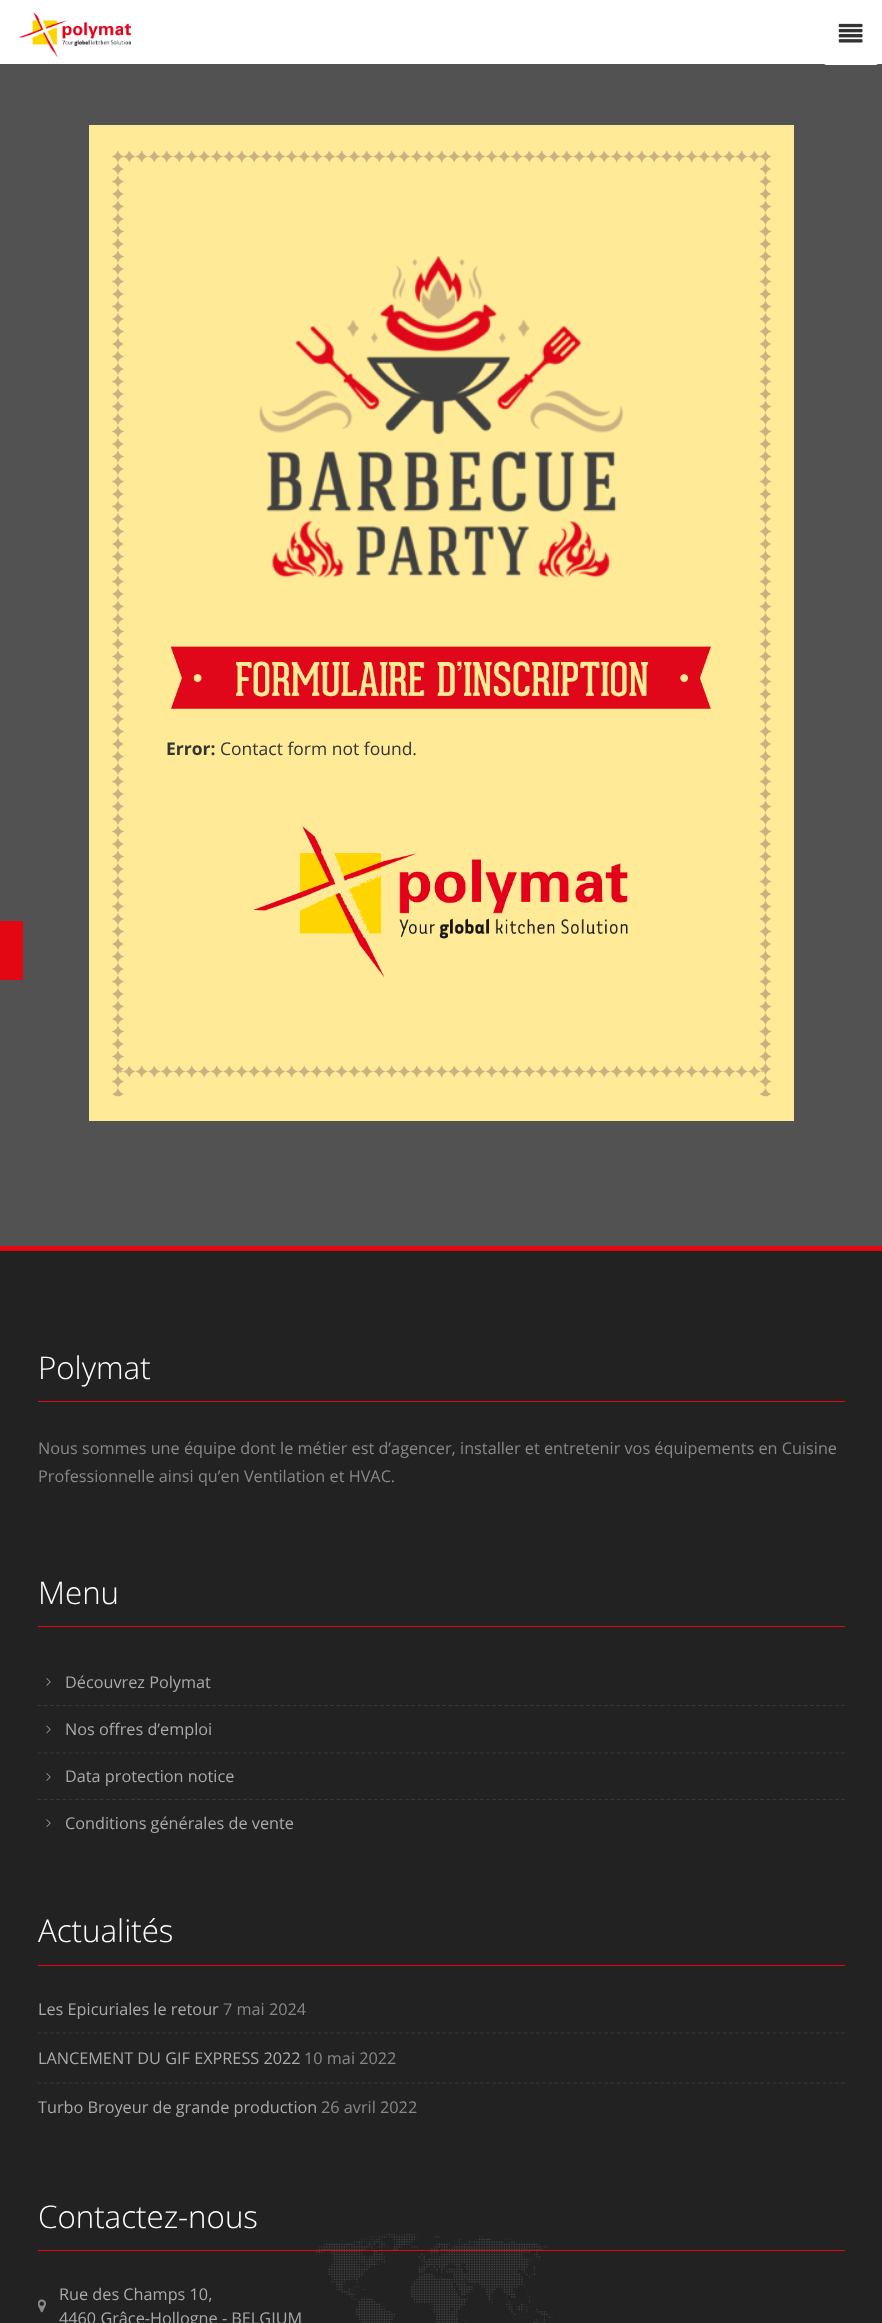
<svg xmlns="http://www.w3.org/2000/svg" xmlns:xlink="http://www.w3.org/1999/xlink" width="882" height="2323" viewBox="0 0 882 2323">
<style>
.cls-1{font:bold 17.5px Open Sans;fill:#333333}
.cls-2{font:17.5px Open Sans;fill:#333333}
.cls-3{font:300 31.25px Open Sans;fill:#ffffff}
.cls-4{font:16.25px Open Sans;fill:#888888}
.cls-5{font:16.25px Open Sans;fill:#aaaaaa}
</style>
<rect width="100%" height="100%" fill="#222222"/>
<rect fill="#ffffff" x="0" y="0" width="882" height="64"/>
<image xlink:href="image0.png" x="18" y="12" width="113" height="45"/>
<rect fill="#525252" x="0" y="64" width="882" height="1182"/>
<rect fill="#ffffff" x="823" y="4" width="56" height="61" rx="4"/>
<image xlink:href="image1.png" x="838" y="23" width="25" height="20"/>
<rect fill="#ffeb97" x="89" y="125" width="705" height="996"/>
<image xlink:href="image2.png" x="112" y="150" width="12" height="947"/>
<image xlink:href="image3.png" x="123" y="150" width="640" height="13"/>
<image xlink:href="image4.png" x="258" y="256" width="366" height="322"/>
<image xlink:href="image5.png" x="170" y="646" width="542" height="63"/>
<image xlink:href="image6.png" x="253" y="826" width="375" height="152"/>
<image xlink:href="image7.png" x="120" y="1065" width="643" height="13"/>
<image xlink:href="image8.png" x="759" y="150" width="13" height="947"/>
<rect fill="#e30613" x="0" y="921" width="23" height="59"/>
<rect fill="#e30613" x="0" y="1246" width="882" height="5"/>
<rect fill="#e30613" x="38" y="1401" width="807" height="1"/>
<rect fill="#e30613" x="38" y="1626" width="807" height="1"/>
<image xlink:href="image9.png" x="46" y="1678" width="5" height="8"/>
<path fill="none" stroke="#383838" stroke-width="1.2" stroke-dasharray="3.75 2.48" d="M37.5 1705.5H845"/>
<image xlink:href="image10.png" x="46" y="1725" width="5" height="9"/>
<path fill="none" stroke="#383838" stroke-width="1.2" stroke-dasharray="3.75 2.48" d="M37.5 1753H845"/>
<image xlink:href="image9.png" x="46" y="1773" width="5" height="8"/>
<path fill="none" stroke="#383838" stroke-width="1.2" stroke-dasharray="3.75 2.48" d="M37.5 1799.5H845"/>
<image xlink:href="image11.png" x="46" y="1819" width="5" height="9"/>
<rect fill="#e30613" x="38" y="1965" width="807" height="1"/>
<path fill="none" stroke="#383838" stroke-width="1.2" stroke-dasharray="3.75 2.48" d="M37.5 2033H845"/>
<path fill="none" stroke="#383838" stroke-width="1.2" stroke-dasharray="3.75 2.48" d="M37.5 2083H845"/>
<image xlink:href="image12.png" x="314" y="2233" width="246" height="90"/>
<rect fill="#e30613" x="38" y="2250" width="807" height="1"/>
<image xlink:href="image13.png" x="38" y="2299" width="8" height="14"/>
<text class="cls-1" x="166" y="755">Error:</text>
<text class="cls-2" x="220" y="755">Contact form not found.</text>
<text class="cls-3" x="38" y="1379">Polymat</text>
<text class="cls-4"><tspan x="38" y="1454">Nous sommes une équipe dont le métier est d’agencer, installer et entretenir vos équipements en Cuisine</tspan><tspan x="38" y="1482">Professionnelle ainsi qu’en Ventilation et HVAC.</tspan></text>
<text class="cls-3" x="38" y="1604">Menu</text>
<text class="cls-5" x="65" y="1688">Découvrez Polymat</text>
<text class="cls-5" x="65" y="1735">Nos offres d’emploi</text>
<text class="cls-5" x="65" y="1782">Data protection notice</text>
<text class="cls-5" x="65" y="1829">Conditions générales de vente</text>
<text class="cls-3" x="38" y="1942">Actualités</text>
<text class="cls-5" x="38" y="2015">Les Epicuriales le retour</text>
<text class="cls-4" x="223" y="2015">7 mai 2024</text>
<text class="cls-5" x="38" y="2064">LANCEMENT DU GIF EXPRESS 2022</text>
<text class="cls-4" x="304" y="2064">10 mai 2022</text>
<text class="cls-5" x="38" y="2113">Turbo Broyeur de grande production</text>
<text class="cls-4" x="321" y="2113">26 avril 2022</text>
<text class="cls-3" x="38" y="2228">Contactez-nous</text>
<text class="cls-5"><tspan x="59" y="2300">Rue des Champs 10,</tspan><tspan x="59" y="2324">4460 Grâce-Hollogne - BELGIUM</tspan></text>
</svg>
